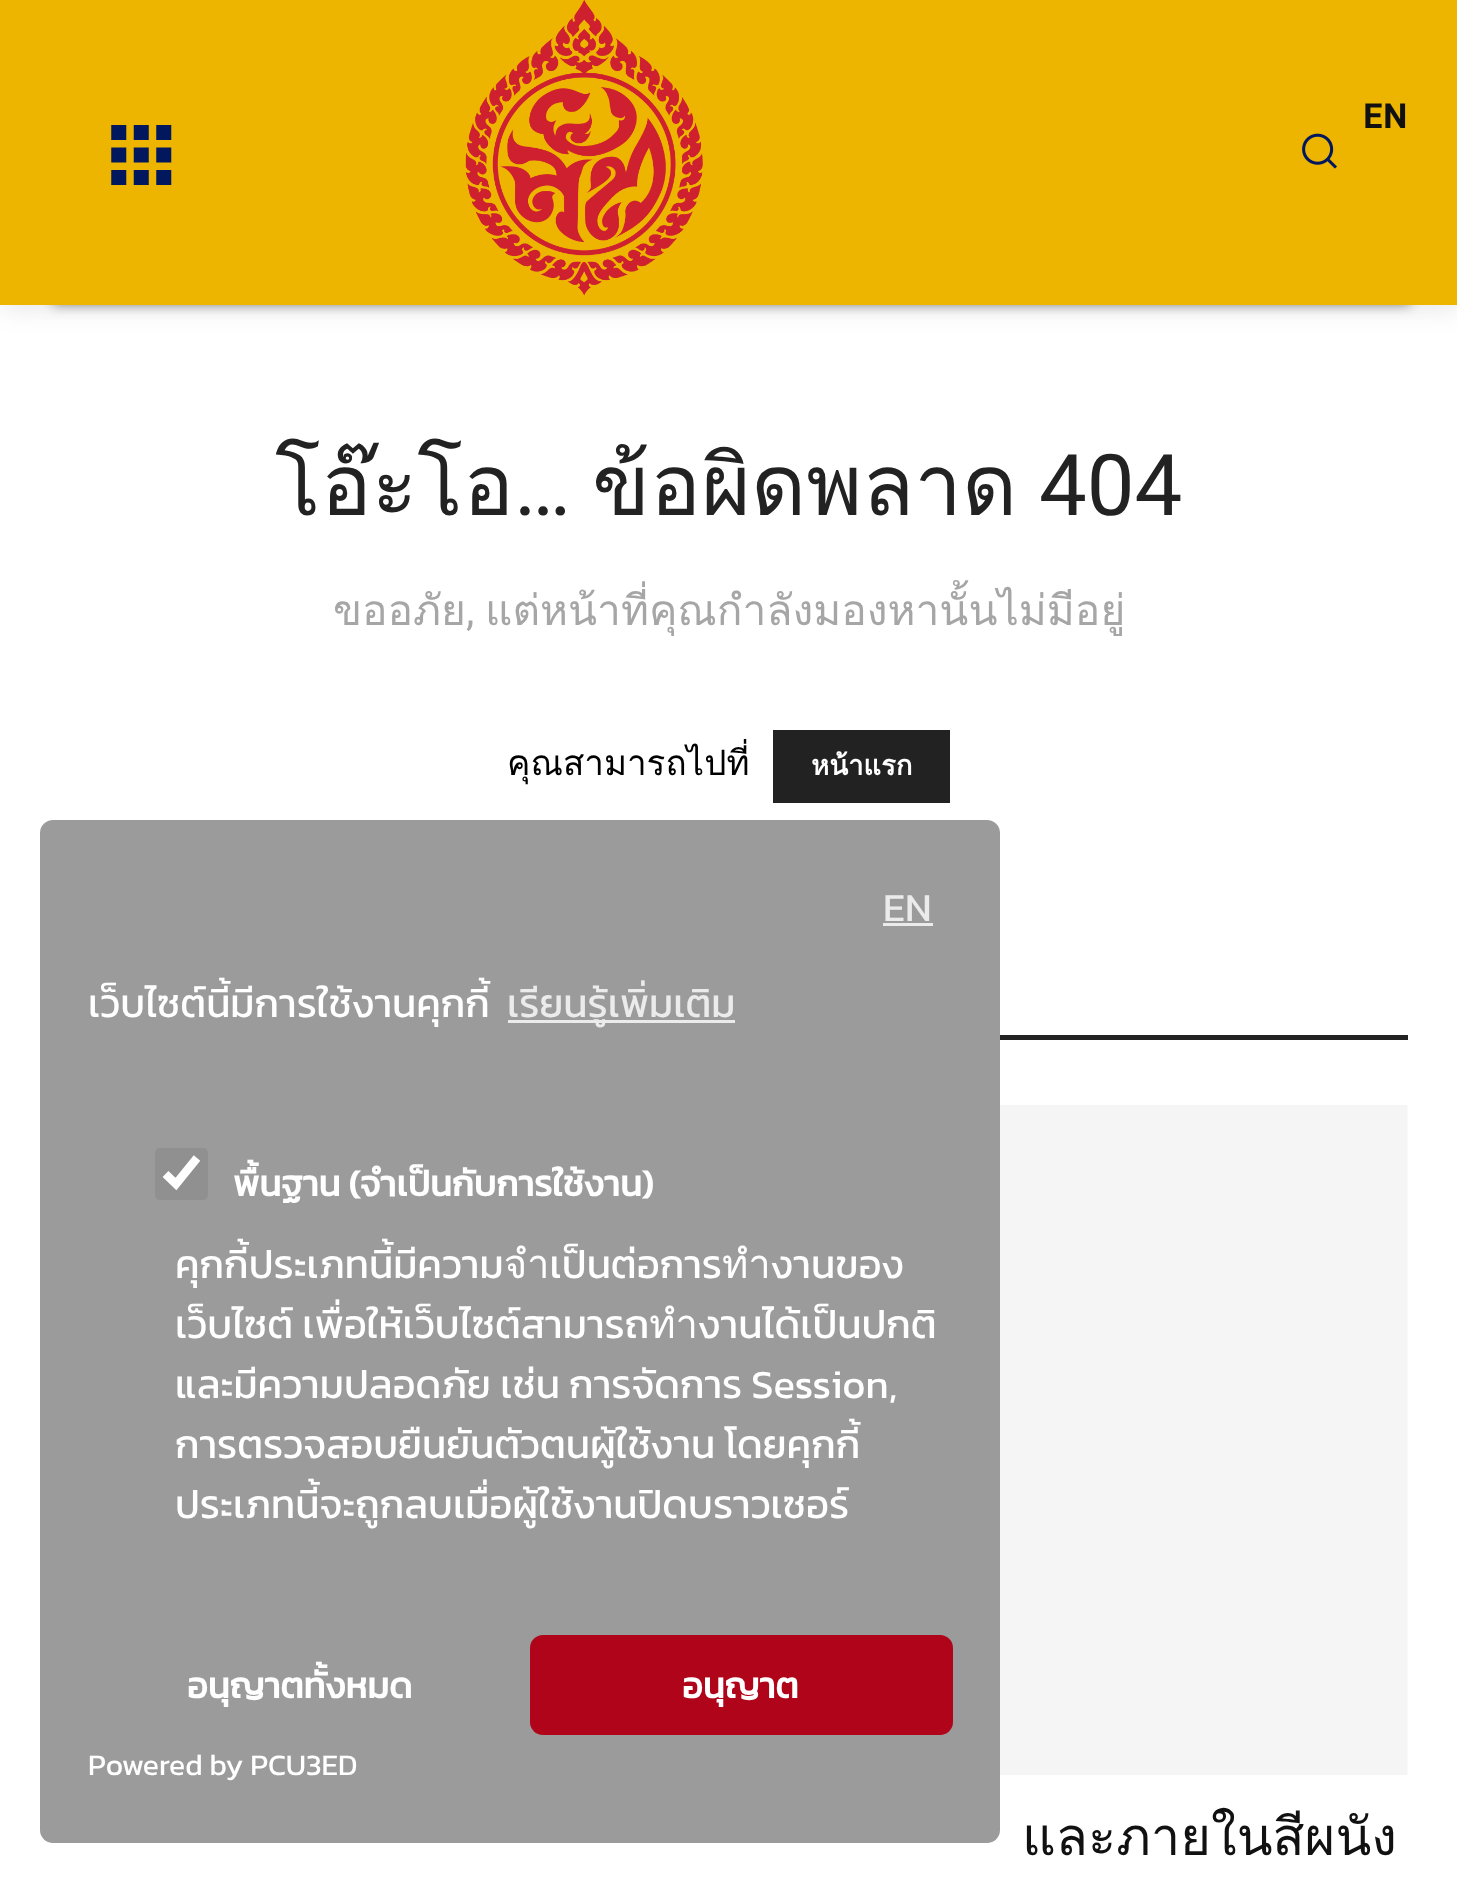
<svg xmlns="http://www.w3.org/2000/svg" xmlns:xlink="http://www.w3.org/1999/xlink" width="1457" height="1881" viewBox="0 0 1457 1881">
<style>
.cls-1{font:bold 35px Sarabun;fill:#111111}
.cls-2{font:85px Loma;fill:#222222}
.cls-3{font:85px Roboto;fill:#222222}
.cls-4{font:42.5px Loma;fill:#a6a6a6}
.cls-5{font:42.5px Roboto;fill:#a6a6a6}
.cls-6{font:35px Loma;fill:#000000}
.cls-7{font:bold 27.5px Loma;fill:#ffffff}
.cls-8{font:52.5px Loma;fill:#111111}
.cls-9{font:40px Kanit;fill:#ebebeb}
.cls-10{font:40px Kanit;fill:#ffffff}
.cls-11{font:bold 36px Kanit;fill:#ffffff}
.cls-12{font:30px Kanit;fill:#ffffff}
</style>
<rect width="100%" height="100%" fill="#ffffff"/>
<rect fill="#000000" fill-opacity="0.09" filter="blur(12.5px)" x="3" y="5" width="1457" height="305"/>
<rect fill="#888888" filter="blur(6px)" x="53" y="0" width="1357" height="305"/>
<rect fill="#edb500" x="0" y="0" width="1457" height="305"/>
<image xlink:href="image0.png" x="465" y="0" width="238" height="296"/>
<image xlink:href="image1.png" x="1302" y="133" width="35" height="36"/>
<image xlink:href="image2.png" x="111" y="125" width="61" height="60"/>
<rect fill="#222222" x="773" y="730" width="177" height="73"/>
<rect fill="#222222" x="1000" y="1035" width="408" height="5"/>
<image xlink:href="image3.png" x="1000" y="1105" width="408" height="670"/>
<rect fill="#9b9b9b" x="40" y="820" width="960" height="1023" rx="13"/>
<rect fill="#ebebeb" x="883" y="923" width="50" height="3"/>
<rect fill="#ebebeb" x="508" y="1020" width="227" height="3"/>
<rect fill="#909090" x="155" y="1148" width="53" height="52" rx="5"/>
<path fill="none" stroke="#ffffff" stroke-width="8.4" d="M165.5 1174L176 1184L197 1158"/>
<rect fill="#af0419" x="530" y="1635" width="423" height="100" rx="13"/>
<text class="cls-1" x="1363" y="128">EN</text>
<text class="cls-2" x="275" y="515">โอ๊ะโอ</text>
<text class="cls-3" x="514" y="515">…</text>
<text class="cls-2" x="592" y="515">ข้อผิดพลาด</text>
<text class="cls-3" x="1039" y="515">404</text>
<text class="cls-4" x="333" y="625">ขออภัย</text>
<text class="cls-5" x="466" y="625">,</text>
<text class="cls-4" x="485" y="625">แต่หน้าที่คุณกำลังมองหานั้นไม่มีอยู่</text>
<text class="cls-6" x="507" y="775">คุณสามารถไปที่</text>
<text class="cls-7" x="811" y="775">หน้าแรก</text>
<text class="cls-8" x="1022" y="1855">และภายในสีผนัง</text>
<text class="cls-9" x="883" y="921">EN</text>
<text class="cls-10" x="88" y="1017">เว็บไซต์นี้มีการใช้งานคุกกี้</text>
<text class="cls-9" x="507" y="1017">เรียนรู้เพิ่มเติม</text>
<text class="cls-11" x="233" y="1196">พื้นฐาน (จำเป็นกับการใช้งาน)</text>
<text class="cls-10"><tspan x="175" y="1278">คุกกี้ประเภทนี้มีความจำเป็นต่อการทำงานของ</tspan><tspan x="175" y="1338">เว็บไซต์ เพื่อให้เว็บไซต์สามารถทำงานได้เป็นปกติ</tspan><tspan x="175" y="1398">และมีความปลอดภัย เช่น การจัดการ Session,</tspan><tspan x="175" y="1458">การตรวจสอบยืนยันตัวตนผู้ใช้งาน โดยคุกกี้</tspan><tspan x="175" y="1518">ประเภทนี้จะถูกลบเมื่อผู้ใช้งานปิดบราวเซอร์</tspan></text>
<text class="cls-11" x="187" y="1698">อนุญาตทั้งหมด</text>
<text class="cls-11" x="682" y="1698">อนุญาต</text>
<text class="cls-12" x="88" y="1775">Powered by PCU3ED</text>
</svg>
